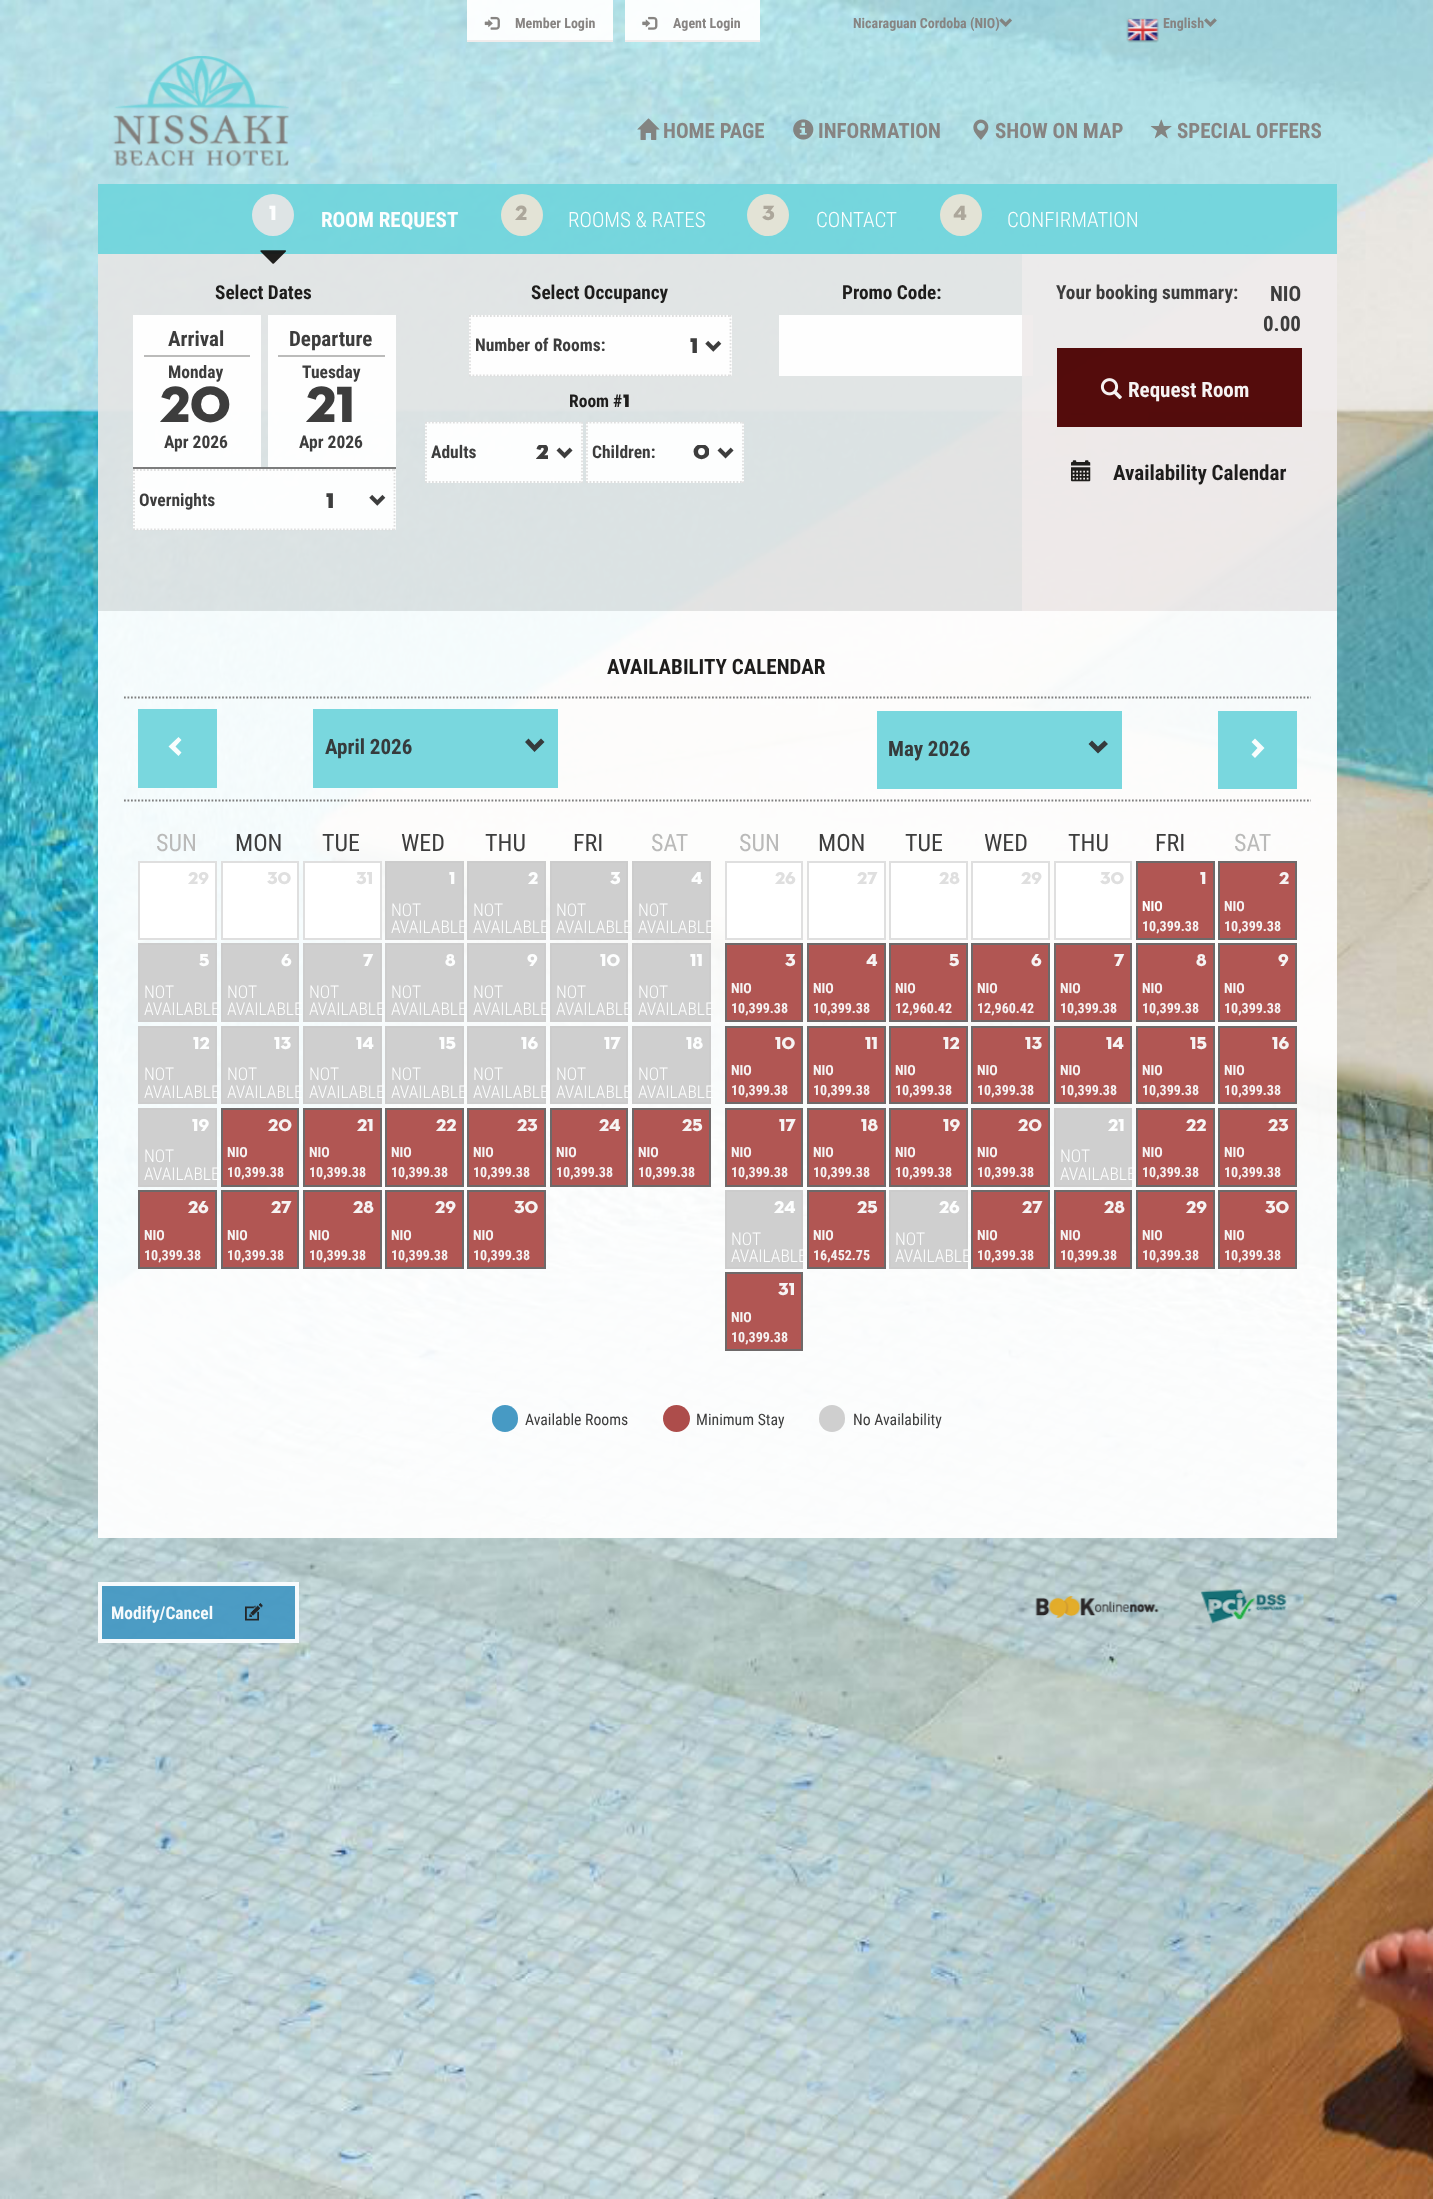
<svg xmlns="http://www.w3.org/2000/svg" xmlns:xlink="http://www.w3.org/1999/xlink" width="1433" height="2199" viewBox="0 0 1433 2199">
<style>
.cls-1{font:bold 14px Roboto Condensed;fill:#878482}
.cls-2{font:bold 21px Roboto Condensed;fill:#878482}
.cls-3{font:21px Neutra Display;fill:#fdfefe}
.cls-4{font:bold 21px Roboto Condensed;fill:#fdfefe}
.cls-5{font:21px Neutra Display;fill:#aca79b}
.cls-6{font:300 21px Roboto Condensed;fill:#fdfefe}
.cls-7{font:bold 19.25px Roboto Condensed;fill:#1e1d1c}
.cls-8{font:bold 21px Roboto Condensed;fill:#3d3d3d}
.cls-9{font:bold 17.5px Roboto Condensed;fill:#3d3d3d}
.cls-10{font:52px Neutra Display;fill:#3d3d3d}
.cls-11{font:bold 21px Neutra Display;fill:#3d3d3d}
.cls-12{font:bold 17.5px Roboto Condensed;fill:#1e1d1c}
.cls-13{font:bold 17.5px Neutra Display;fill:#1e1d1c}
.cls-14{font:bold 19.25px Roboto Condensed;fill:#3d3d3d}
.cls-15{font:bold 21px Roboto Condensed;fill:#f6f3f3}
.cls-16{font:bold 21px Roboto Condensed;fill:#1e1d1c}
.cls-17{font:bold 21px Roboto Condensed;fill:#363b3c}
.cls-18{font:24px Roboto Condensed;fill:#babab9}
.cls-19{font:24px Roboto Condensed;fill:#3d3d3d}
.cls-20{font:17.5px Neutra Display;fill:#dfdfdf}
.cls-21{font:17.5px Neutra Display;fill:#fdfefe}
.cls-22{font:300 17.5px Roboto Condensed;fill:#fdfefe}
.cls-23{font:17.5px Neutra Display;fill:#f6f3f3}
.cls-24{font:bold 14px Roboto Condensed;fill:#f6f3f3}
.cls-25{font:bold 14px Roboto Condensed;fill:#fdfefe}
.cls-26{font:15.75px Roboto Condensed;fill:#3d3d3d}
.cls-27{font:bold 17.5px Roboto Condensed;fill:#f6fafc}
</style>
<defs>
<clipPath id="clip1"><rect x="522" y="445" width="26" height="21"/></clipPath>
<clipPath id="clip2"><rect x="683" y="445" width="26" height="21"/></clipPath>
</defs>
<rect width="100%" height="100%" fill="#ffffff"/>
<image xlink:href="image0.png" x="0" y="0" width="1433" height="2199"/>
<rect fill="#ffffff" fill-opacity="0.95" x="467" y="0" width="146" height="40"/>
<rect fill="#f0ecec" x="467" y="40" width="146" height="2"/>
<image xlink:href="image1.png" x="484" y="16" width="16" height="14"/>
<rect fill="#ffffff" fill-opacity="0.95" x="625" y="0" width="135" height="40"/>
<rect fill="#f0ecec" x="625" y="40" width="135" height="2"/>
<image xlink:href="image2.png" x="642" y="16" width="16" height="14"/>
<image xlink:href="image4.png" x="1126" y="18" width="33" height="25"/>
<image xlink:href="image5.png" x="1204" y="18" width="13" height="9"/>
<image xlink:href="image6.png" x="113" y="56" width="176" height="111"/>
<image xlink:href="image7.png" x="637" y="118" width="23" height="22"/>
<image xlink:href="image8.png" x="793" y="119" width="21" height="21"/>
<image xlink:href="image9.png" x="973" y="119" width="16" height="21"/>
<image xlink:href="image10.png" x="1150" y="119" width="22" height="20"/>
<rect fill="#72d5dc" fill-opacity="0.95" x="98" y="184" width="1239" height="70"/>
<circle fill="#dee4e5" cx="273" cy="215" r="21"/>
<rect fill="#e4e5e5" fill-opacity="0.95" x="98" y="254" width="924" height="357"/>
<image xlink:href="image11.png" x="260" y="250" width="26" height="14"/>
<circle fill="#e3e3d6" cx="522" cy="215" r="21"/>
<circle fill="#e3e3d6" cx="768" cy="215" r="21"/>
<circle fill="#e3e3d6" cx="961" cy="215" r="21"/>
<rect fill="#ffffff" fill-opacity="0.95" x="133" y="315" width="128" height="152"/>
<rect fill="#bbbbba" x="144" y="355" width="106" height="2"/>
<rect fill="#ffffff" fill-opacity="0.95" x="268" y="315" width="128" height="152"/>
<rect fill="#bbbbba" x="278" y="355" width="107" height="2"/>
<rect fill="#777777" fill-opacity="0.95" x="133" y="467" width="263" height="2"/>
<rect fill="#ffffff" fill-opacity="0.95" x="133" y="469" width="263" height="61"/>
<path fill="none" stroke="#dfdfdf" stroke-width="1.8" stroke-dasharray="1.75 1.75" d="M133 470H395.5"/>
<path fill="none" stroke="#dfdfdf" stroke-width="1.8" stroke-dasharray="1.75 1.75" d="M394.5 469V530"/>
<path fill="none" stroke="#dddddd" stroke-opacity="0.95" stroke-width="1.8" stroke-dasharray="1.75 1.75" d="M133 529.5H395.5"/>
<path fill="none" stroke="#dddddd" stroke-opacity="0.95" stroke-width="1.8" stroke-dasharray="1.75 1.75" d="M134 469V530"/>
<image xlink:href="image12.png" x="369" y="494" width="17" height="12"/>
<rect fill="#fefefe" x="469" y="315" width="263" height="61"/>
<path fill="none" stroke="#dfdfdf" stroke-width="1.8" stroke-dasharray="1.75 1.75" d="M469 316H731.5"/>
<path fill="none" stroke="#dfdfdf" stroke-width="1.8" stroke-dasharray="1.75 1.75" d="M730.5 315V376"/>
<path fill="none" stroke="#dddddd" stroke-opacity="0.95" stroke-width="1.8" stroke-dasharray="1.75 1.75" d="M469 375.5H731.5"/>
<path fill="none" stroke="#dddddd" stroke-opacity="0.95" stroke-width="1.8" stroke-dasharray="1.75 1.75" d="M470 315V376"/>
<image xlink:href="image13.png" x="705" y="340" width="17" height="12"/>
<rect fill="#ffffff" fill-opacity="0.95" x="425" y="422" width="158" height="61"/>
<path fill="none" stroke="#dfdfdf" stroke-width="1.8" stroke-dasharray="1.75 1.75" d="M425 422.5H583"/>
<path fill="none" stroke="#dddddd" stroke-opacity="0.95" stroke-width="1.8" stroke-dasharray="1.75 1.75" d="M582 422V483"/>
<path fill="none" stroke="#dfdfdf" stroke-width="1.8" stroke-dasharray="1.75 1.75" d="M425 482H583"/>
<path fill="none" stroke="#dddddd" stroke-opacity="0.95" stroke-width="1.8" stroke-dasharray="1.75 1.75" d="M426 422V483"/>
<image xlink:href="image14.png" x="556" y="447" width="17" height="12"/>
<rect fill="#fdfefe" x="586" y="422" width="158" height="61"/>
<path fill="none" stroke="#dfdfdf" stroke-width="1.8" stroke-dasharray="1.75 1.75" d="M586 422.5H744"/>
<path fill="none" stroke="#dddddd" stroke-opacity="0.95" stroke-width="1.8" stroke-dasharray="1.75 1.75" d="M743 422V483"/>
<path fill="none" stroke="#dfdfdf" stroke-width="1.8" stroke-dasharray="1.75 1.75" d="M586 482H744"/>
<path fill="none" stroke="#dddddd" stroke-opacity="0.95" stroke-width="1.8" stroke-dasharray="1.75 1.75" d="M587 422V483"/>
<image xlink:href="image15.png" x="717" y="447" width="17" height="12"/>
<rect fill="#ffffff" fill-opacity="0.95" x="779" y="315" width="254" height="61"/>
<rect fill="#efebeb" fill-opacity="0.95" x="1022" y="254" width="315" height="357"/>
<rect fill="#4b0000" fill-opacity="0.95" x="1057" y="348" width="245" height="79"/>
<image xlink:href="image16.png" x="1100" y="378" width="22" height="22"/>
<image xlink:href="image17.png" x="1071" y="460" width="20" height="22"/>
<rect fill="#ffffff" fill-opacity="0.95" x="98" y="611" width="1239" height="927"/>
<path fill="none" stroke="#777777" stroke-opacity="0.95" stroke-width="1.8" stroke-dasharray="1.75 1.75" d="M124 697.5H1311"/>
<path fill="none" stroke="#777777" stroke-opacity="0.95" stroke-width="1.8" stroke-dasharray="1.75 1.75" d="M124 800.5H1311"/>
<rect fill="#72d5dc" fill-opacity="0.95" x="138" y="709" width="79" height="79"/>
<path fill="#f8fdfd" d="M181.5 740L175.5 746.5L181.5 752.5L178.5 756L168.5 746.5L178.5 737Z"/>
<rect fill="#72d5dc" fill-opacity="0.95" x="313" y="709" width="245" height="79"/>
<path fill="#363b3c" d="M544.5 742L534.5 752L525 742L528.5 738.5L534.5 745L541 738.5Z"/>
<rect fill="#72d5dc" fill-opacity="0.95" x="877" y="711" width="245" height="78"/>
<path fill="#363b3c" d="M1108 744L1098 753.5L1088.5 744L1092 740.5L1098 746.5L1104.5 740.5Z"/>
<rect fill="#72d5dc" fill-opacity="0.95" x="1218" y="711" width="79" height="78"/>
<path fill="#f8fdfd" d="M1264.5 748L1255 758L1251.5 754.5L1257.5 748L1251.5 742L1255 738.5Z"/>
<rect fill="#ffffff" fill-opacity="0.95" stroke="#dfdfdf" stroke-width="2" x="139" y="862" width="77" height="77"/>
<rect fill="#ffffff" fill-opacity="0.95" stroke="#dfdfdf" stroke-width="2" x="222" y="862" width="76" height="77"/>
<rect fill="#ffffff" fill-opacity="0.95" stroke="#dfdfdf" stroke-width="2" x="304" y="862" width="77" height="77"/>
<rect fill="#cccccc" fill-opacity="0.95" stroke="#cccccc" stroke-width="2" x="386" y="862" width="77" height="77"/>
<rect fill="#cccccc" fill-opacity="0.95" stroke="#cccccc" stroke-width="2" x="468" y="862" width="77" height="77"/>
<rect fill="#cccccc" fill-opacity="0.95" stroke="#cccccc" stroke-width="2" x="551" y="862" width="76" height="77"/>
<rect fill="#cccccc" fill-opacity="0.95" stroke="#cccccc" stroke-width="2" x="633" y="862" width="77" height="77"/>
<rect fill="#cccccc" fill-opacity="0.95" stroke="#cccccc" stroke-width="2" x="139" y="944" width="77" height="77"/>
<rect fill="#cccccc" fill-opacity="0.95" stroke="#cccccc" stroke-width="2" x="222" y="944" width="76" height="77"/>
<rect fill="#cccccc" fill-opacity="0.95" stroke="#cccccc" stroke-width="2" x="304" y="944" width="77" height="77"/>
<rect fill="#cccccc" fill-opacity="0.95" stroke="#cccccc" stroke-width="2" x="386" y="944" width="77" height="77"/>
<rect fill="#cccccc" fill-opacity="0.95" stroke="#cccccc" stroke-width="2" x="468" y="944" width="77" height="77"/>
<rect fill="#cccccc" fill-opacity="0.95" stroke="#cccccc" stroke-width="2" x="551" y="944" width="76" height="77"/>
<rect fill="#cccccc" fill-opacity="0.95" stroke="#cccccc" stroke-width="2" x="633" y="944" width="77" height="77"/>
<rect fill="#cccccc" fill-opacity="0.95" stroke="#cccccc" stroke-width="2" x="139" y="1027" width="77" height="76"/>
<rect fill="#cccccc" fill-opacity="0.95" stroke="#cccccc" stroke-width="2" x="222" y="1027" width="76" height="76"/>
<rect fill="#cccccc" fill-opacity="0.95" stroke="#cccccc" stroke-width="2" x="304" y="1027" width="77" height="76"/>
<rect fill="#cccccc" fill-opacity="0.95" stroke="#cccccc" stroke-width="2" x="386" y="1027" width="77" height="76"/>
<rect fill="#cccccc" fill-opacity="0.95" stroke="#cccccc" stroke-width="2" x="468" y="1027" width="77" height="76"/>
<rect fill="#cccccc" fill-opacity="0.95" stroke="#cccccc" stroke-width="2" x="551" y="1027" width="76" height="76"/>
<rect fill="#cccccc" fill-opacity="0.95" stroke="#cccccc" stroke-width="2" x="633" y="1027" width="77" height="76"/>
<rect fill="#cccccc" fill-opacity="0.95" stroke="#cccccc" stroke-width="2" x="139" y="1109" width="77" height="77"/>
<rect fill="#ad4d4a" fill-opacity="0.95" stroke="#6e6969" stroke-width="2" x="222" y="1109" width="76" height="77"/>
<rect fill="#ad4d4a" fill-opacity="0.95" stroke="#6e6969" stroke-width="2" x="304" y="1109" width="77" height="77"/>
<rect fill="#ad4d4a" fill-opacity="0.95" stroke="#6e6969" stroke-width="2" x="386" y="1109" width="77" height="77"/>
<rect fill="#ad4d4a" fill-opacity="0.95" stroke="#6e6969" stroke-width="2" x="468" y="1109" width="77" height="77"/>
<rect fill="#ad4d4a" fill-opacity="0.95" stroke="#6e6969" stroke-width="2" x="551" y="1109" width="76" height="77"/>
<rect fill="#ad4d4a" fill-opacity="0.95" stroke="#6e6969" stroke-width="2" x="633" y="1109" width="77" height="77"/>
<rect fill="#ad4d4a" fill-opacity="0.95" stroke="#6e6969" stroke-width="2" x="139" y="1191" width="77" height="77"/>
<rect fill="#ad4d4a" fill-opacity="0.95" stroke="#6e6969" stroke-width="2" x="222" y="1191" width="76" height="77"/>
<rect fill="#ad4d4a" fill-opacity="0.95" stroke="#6e6969" stroke-width="2" x="304" y="1191" width="77" height="77"/>
<rect fill="#ad4d4a" fill-opacity="0.95" stroke="#6e6969" stroke-width="2" x="386" y="1191" width="77" height="77"/>
<rect fill="#ad4d4a" fill-opacity="0.95" stroke="#6e6969" stroke-width="2" x="468" y="1191" width="77" height="77"/>
<rect fill="#ffffff" fill-opacity="0.95" stroke="#dfdfdf" stroke-width="2" x="726" y="862" width="76" height="77"/>
<rect fill="#ffffff" stroke="#dfdfdf" stroke-width="2" x="808" y="862" width="77" height="77"/>
<rect fill="#ffffff" stroke="#dfdfdf" stroke-width="2" x="890" y="862" width="77" height="77"/>
<rect fill="#ffffff" stroke="#dfdfdf" stroke-width="2" x="972" y="862" width="77" height="77"/>
<rect fill="#ffffff" stroke="#dfdfdf" stroke-width="2" x="1055" y="862" width="76" height="77"/>
<rect fill="#b15653" stroke="#6e6969" stroke-width="2" x="1137" y="862" width="77" height="77"/>
<rect fill="#b15653" stroke="#6e6969" stroke-width="2" x="1219" y="862" width="77" height="77"/>
<rect fill="#ad4d4a" fill-opacity="0.95" stroke="#6e6969" stroke-width="2" x="726" y="944" width="76" height="77"/>
<rect fill="#ad4d4a" fill-opacity="0.95" stroke="#6e6969" stroke-width="2" x="808" y="944" width="77" height="77"/>
<rect fill="#ad4d4a" fill-opacity="0.95" stroke="#6e6969" stroke-width="2" x="890" y="944" width="77" height="77"/>
<rect fill="#ad4d4a" fill-opacity="0.95" stroke="#6e6969" stroke-width="2" x="972" y="944" width="77" height="77"/>
<rect fill="#ad4d4a" fill-opacity="0.95" stroke="#6e6969" stroke-width="2" x="1055" y="944" width="76" height="77"/>
<rect fill="#b15653" stroke="#6e6969" stroke-width="2" x="1137" y="944" width="77" height="77"/>
<rect fill="#b15653" stroke="#6e6969" stroke-width="2" x="1219" y="944" width="77" height="77"/>
<rect fill="#ad4d4a" fill-opacity="0.95" stroke="#6e6969" stroke-width="2" x="726" y="1027" width="76" height="76"/>
<rect fill="#ad4d4a" fill-opacity="0.95" stroke="#6e6969" stroke-width="2" x="808" y="1027" width="77" height="76"/>
<rect fill="#ad4d4a" fill-opacity="0.95" stroke="#6e6969" stroke-width="2" x="890" y="1027" width="77" height="76"/>
<rect fill="#ad4d4a" fill-opacity="0.95" stroke="#6e6969" stroke-width="2" x="972" y="1027" width="77" height="76"/>
<rect fill="#ad4d4a" fill-opacity="0.95" stroke="#6e6969" stroke-width="2" x="1055" y="1027" width="76" height="76"/>
<rect fill="#ad4d4a" fill-opacity="0.95" stroke="#6e6969" stroke-width="2" x="1137" y="1027" width="77" height="76"/>
<rect fill="#ad4d4a" fill-opacity="0.95" stroke="#6e6969" stroke-width="2" x="1219" y="1027" width="77" height="76"/>
<rect fill="#ad4d4a" fill-opacity="0.95" stroke="#6e6969" stroke-width="2" x="726" y="1109" width="76" height="77"/>
<rect fill="#ad4d4a" fill-opacity="0.95" stroke="#6e6969" stroke-width="2" x="808" y="1109" width="77" height="77"/>
<rect fill="#ad4d4a" fill-opacity="0.95" stroke="#6e6969" stroke-width="2" x="890" y="1109" width="77" height="77"/>
<rect fill="#ad4d4a" fill-opacity="0.95" stroke="#6e6969" stroke-width="2" x="972" y="1109" width="77" height="77"/>
<rect fill="#cccccc" fill-opacity="0.95" stroke="#cccccc" stroke-width="2" x="1055" y="1109" width="76" height="77"/>
<rect fill="#ad4d4a" fill-opacity="0.95" stroke="#6e6969" stroke-width="2" x="1137" y="1109" width="77" height="77"/>
<rect fill="#ad4d4a" fill-opacity="0.95" stroke="#6e6969" stroke-width="2" x="1219" y="1109" width="77" height="77"/>
<rect fill="#cccccc" fill-opacity="0.95" stroke="#cccccc" stroke-width="2" x="726" y="1191" width="76" height="77"/>
<rect fill="#ad4d4a" fill-opacity="0.95" stroke="#6e6969" stroke-width="2" x="808" y="1191" width="77" height="77"/>
<rect fill="#cccccc" fill-opacity="0.95" stroke="#cccccc" stroke-width="2" x="890" y="1191" width="77" height="77"/>
<rect fill="#ad4d4a" fill-opacity="0.95" stroke="#6e6969" stroke-width="2" x="972" y="1191" width="77" height="77"/>
<rect fill="#ad4d4a" fill-opacity="0.95" stroke="#6e6969" stroke-width="2" x="1055" y="1191" width="76" height="77"/>
<rect fill="#ad4d4a" fill-opacity="0.95" stroke="#6e6969" stroke-width="2" x="1137" y="1191" width="77" height="77"/>
<rect fill="#ad4d4a" fill-opacity="0.95" stroke="#6e6969" stroke-width="2" x="1219" y="1191" width="77" height="77"/>
<rect fill="#ad4d4a" fill-opacity="0.95" stroke="#6e6969" stroke-width="2" x="726" y="1273" width="76" height="77"/>
<rect fill="#479ac4" x="492" y="1405" width="26" height="27" rx="13"/>
<circle fill="#ad4d4b" cx="676.5" cy="1418.5" r="13.5"/>
<rect fill="#cccccc" fill-opacity="0.95" x="819" y="1405" width="26" height="27" rx="13"/>
<rect fill="#4699c3" fill-opacity="0.95" x="98" y="1582" width="201" height="61"/>
<rect fill="none" stroke="#ffffff" stroke-opacity="0.95" stroke-width="4" x="100" y="1584" width="197" height="57"/>
<image xlink:href="image18.png" x="245" y="1603" width="18" height="18"/>
<image xlink:href="image19.png" x="1035" y="1596" width="124" height="22"/>
<image xlink:href="image20.png" x="1200" y="1589" width="87" height="35"/>
<text class="cls-1" x="515" y="28">Member Login</text>
<text class="cls-1" x="673" y="28">Agent Login</text>
<text class="cls-1" x="853" y="28">Nicaraguan Cordoba (NIO)</text>
<image xlink:href="image3.png" x="999" y="18" width="13" height="9"/>
<text class="cls-1" x="1163" y="28">English</text>
<text class="cls-2" x="663" y="138">HOME PAGE</text>
<text class="cls-2" x="818" y="138">INFORMATION</text>
<text class="cls-2" x="995" y="138">SHOW ON MAP</text>
<text class="cls-2" x="1177" y="138">SPECIAL OFFERS</text>
<text class="cls-3" x="269" y="220">1</text>
<text class="cls-4" x="321" y="227">ROOM REQUEST</text>
<text class="cls-5" x="515" y="220">2</text>
<text class="cls-6" x="568" y="227">ROOMS &amp; RATES</text>
<text class="cls-5" x="762" y="220">3</text>
<text class="cls-6" x="816" y="227">CONTACT</text>
<text class="cls-5" x="953" y="220">4</text>
<text class="cls-6" x="1007" y="227">CONFIRMATION</text>
<text class="cls-7" x="215" y="299">Select Dates</text>
<text class="cls-8" x="168" y="346">Arrival</text>
<text class="cls-9" x="168" y="378">Monday</text>
<text class="cls-10" x="160" y="422">20</text>
<text class="cls-9" x="164" y="448">Apr 2026</text>
<text class="cls-8" x="289" y="346">Departure</text>
<text class="cls-9" x="302" y="378">Tuesday</text>
<text class="cls-10" x="306" y="422">21</text>
<text class="cls-9" x="299" y="448">Apr 2026</text>
<text class="cls-9" x="139" y="506">Overnights</text>
<text class="cls-11" x="326" y="508">1</text>
<text class="cls-7" x="531" y="299">Select Occupancy</text>
<text class="cls-9" x="475" y="351">Number of Rooms:</text>
<text class="cls-11" x="690" y="353">1</text>
<text class="cls-12" x="569" y="407">Room #</text>
<text class="cls-13" x="623" y="407">1</text>
<text class="cls-9" x="431" y="458">Adults</text>
<g clip-path="url(#clip1)">
<text class="cls-11" x="536" y="459">2</text>
</g>
<text class="cls-9" x="592" y="458">Children:</text>
<g clip-path="url(#clip2)">
<text class="cls-11" x="693" y="459">0</text>
</g>
<text class="cls-7" x="842" y="299">Promo Code:</text>
<text class="cls-14" x="1056" y="299">Your booking summary:</text>
<text class="cls-8" x="1270" y="301">NIO</text>
<text class="cls-8" x="1263" y="331">0.00</text>
<text class="cls-15" x="1128" y="397">Request Room</text>
<text class="cls-16" x="1113" y="480">Availability Calendar</text>
<text class="cls-16" x="607" y="674">AVAILABILITY CALENDAR</text>
<text class="cls-17" x="325" y="754">April 2026</text>
<text class="cls-17" x="888" y="756">May 2026</text>
<text class="cls-18" x="156" y="851">SUN</text>
<text class="cls-19" x="235" y="851">MON</text>
<text class="cls-19" x="322" y="851">TUE</text>
<text class="cls-19" x="401" y="851">WED</text>
<text class="cls-19" x="485" y="851">THU</text>
<text class="cls-19" x="573" y="851">FRI</text>
<text class="cls-18" x="651" y="851">SAT</text>
<text class="cls-20" x="188" y="884">29</text>
<text class="cls-20" x="267" y="884">30</text>
<text class="cls-20" x="356" y="884">31</text>
<text class="cls-21" x="449" y="884">1</text>
<text class="cls-22"><tspan x="391" y="916">NOT</tspan><tspan x="391" y="933">AVAILABLE</tspan></text>
<text class="cls-21" x="528" y="884">2</text>
<text class="cls-22"><tspan x="473" y="916">NOT</tspan><tspan x="473" y="933">AVAILABLE</tspan></text>
<text class="cls-21" x="610" y="884">3</text>
<text class="cls-22"><tspan x="556" y="916">NOT</tspan><tspan x="556" y="933">AVAILABLE</tspan></text>
<text class="cls-21" x="691" y="884">4</text>
<text class="cls-22"><tspan x="638" y="916">NOT</tspan><tspan x="638" y="933">AVAILABLE</tspan></text>
<text class="cls-21" x="199" y="966">5</text>
<text class="cls-22"><tspan x="144" y="998">NOT</tspan><tspan x="144" y="1015">AVAILABLE</tspan></text>
<text class="cls-21" x="281" y="966">6</text>
<text class="cls-22"><tspan x="227" y="998">NOT</tspan><tspan x="227" y="1015">AVAILABLE</tspan></text>
<text class="cls-21" x="363" y="966">7</text>
<text class="cls-22"><tspan x="309" y="998">NOT</tspan><tspan x="309" y="1015">AVAILABLE</tspan></text>
<text class="cls-21" x="445" y="966">8</text>
<text class="cls-22"><tspan x="391" y="998">NOT</tspan><tspan x="391" y="1015">AVAILABLE</tspan></text>
<text class="cls-21" x="527" y="966">9</text>
<text class="cls-22"><tspan x="473" y="998">NOT</tspan><tspan x="473" y="1015">AVAILABLE</tspan></text>
<text class="cls-21" x="600" y="966">10</text>
<text class="cls-22"><tspan x="556" y="998">NOT</tspan><tspan x="556" y="1015">AVAILABLE</tspan></text>
<text class="cls-21" x="690" y="966">11</text>
<text class="cls-22"><tspan x="638" y="998">NOT</tspan><tspan x="638" y="1015">AVAILABLE</tspan></text>
<text class="cls-21" x="193" y="1049">12</text>
<text class="cls-22"><tspan x="144" y="1080">NOT</tspan><tspan x="144" y="1098">AVAILABLE</tspan></text>
<text class="cls-21" x="274" y="1049">13</text>
<text class="cls-22"><tspan x="227" y="1080">NOT</tspan><tspan x="227" y="1098">AVAILABLE</tspan></text>
<text class="cls-21" x="356" y="1049">14</text>
<text class="cls-22"><tspan x="309" y="1080">NOT</tspan><tspan x="309" y="1098">AVAILABLE</tspan></text>
<text class="cls-21" x="439" y="1049">15</text>
<text class="cls-22"><tspan x="391" y="1080">NOT</tspan><tspan x="391" y="1098">AVAILABLE</tspan></text>
<text class="cls-21" x="521" y="1049">16</text>
<text class="cls-22"><tspan x="473" y="1080">NOT</tspan><tspan x="473" y="1098">AVAILABLE</tspan></text>
<text class="cls-21" x="604" y="1049">17</text>
<text class="cls-22"><tspan x="556" y="1080">NOT</tspan><tspan x="556" y="1098">AVAILABLE</tspan></text>
<text class="cls-21" x="686" y="1049">18</text>
<text class="cls-22"><tspan x="638" y="1080">NOT</tspan><tspan x="638" y="1098">AVAILABLE</tspan></text>
<text class="cls-21" x="192" y="1131">19</text>
<text class="cls-22"><tspan x="144" y="1162">NOT</tspan><tspan x="144" y="1180">AVAILABLE</tspan></text>
<text class="cls-23" x="268" y="1131">20</text>
<text class="cls-24"><tspan x="227" y="1157">NIO</tspan><tspan x="227" y="1177">10,399.38</tspan></text>
<text class="cls-23" x="357" y="1131">21</text>
<text class="cls-24"><tspan x="309" y="1157">NIO</tspan><tspan x="309" y="1177">10,399.38</tspan></text>
<text class="cls-23" x="436" y="1131">22</text>
<text class="cls-24"><tspan x="391" y="1157">NIO</tspan><tspan x="391" y="1177">10,399.38</tspan></text>
<text class="cls-23" x="517" y="1131">23</text>
<text class="cls-24"><tspan x="473" y="1157">NIO</tspan><tspan x="473" y="1177">10,399.38</tspan></text>
<text class="cls-23" x="599" y="1131">24</text>
<text class="cls-24"><tspan x="556" y="1157">NIO</tspan><tspan x="556" y="1177">10,399.38</tspan></text>
<text class="cls-23" x="682" y="1131">25</text>
<text class="cls-24"><tspan x="638" y="1157">NIO</tspan><tspan x="638" y="1177">10,399.38</tspan></text>
<text class="cls-23" x="188" y="1213">26</text>
<text class="cls-24"><tspan x="144" y="1240">NIO</tspan><tspan x="144" y="1260">10,399.38</tspan></text>
<text class="cls-23" x="271" y="1213">27</text>
<text class="cls-24"><tspan x="227" y="1240">NIO</tspan><tspan x="227" y="1260">10,399.38</tspan></text>
<text class="cls-23" x="353" y="1213">28</text>
<text class="cls-24"><tspan x="309" y="1240">NIO</tspan><tspan x="309" y="1260">10,399.38</tspan></text>
<text class="cls-23" x="435" y="1213">29</text>
<text class="cls-24"><tspan x="391" y="1240">NIO</tspan><tspan x="391" y="1260">10,399.38</tspan></text>
<text class="cls-23" x="514" y="1213">30</text>
<text class="cls-24"><tspan x="473" y="1240">NIO</tspan><tspan x="473" y="1260">10,399.38</tspan></text>
<text class="cls-18" x="739" y="851">SUN</text>
<text class="cls-19" x="818" y="851">MON</text>
<text class="cls-19" x="905" y="851">TUE</text>
<text class="cls-19" x="984" y="851">WED</text>
<text class="cls-19" x="1068" y="851">THU</text>
<text class="cls-19" x="1155" y="851">FRI</text>
<text class="cls-18" x="1234" y="851">SAT</text>
<text class="cls-20" x="775" y="884">26</text>
<text class="cls-20" x="857" y="884">27</text>
<text class="cls-20" x="939" y="884">28</text>
<text class="cls-20" x="1021" y="884">29</text>
<text class="cls-20" x="1100" y="884">30</text>
<text class="cls-23" x="1200" y="884">1</text>
<text class="cls-25" x="1142" y="911">NIO</text>
<text class="cls-24" x="1142" y="931">10,399.38</text>
<text class="cls-23" x="1279" y="884">2</text>
<text class="cls-24"><tspan x="1224" y="911">NIO</tspan><tspan x="1224" y="931">10,399.38</tspan></text>
<text class="cls-23" x="785" y="966">3</text>
<text class="cls-24"><tspan x="731" y="993">NIO</tspan><tspan x="731" y="1013">10,399.38</tspan></text>
<text class="cls-23" x="866" y="966">4</text>
<text class="cls-24"><tspan x="813" y="993">NIO</tspan><tspan x="813" y="1013">10,399.38</tspan></text>
<text class="cls-23" x="949" y="966">5</text>
<text class="cls-24"><tspan x="895" y="993">NIO</tspan><tspan x="895" y="1013">12,960.42</tspan></text>
<text class="cls-23" x="1031" y="966">6</text>
<text class="cls-24"><tspan x="977" y="993">NIO</tspan><tspan x="977" y="1013">12,960.42</tspan></text>
<text class="cls-23" x="1114" y="966">7</text>
<text class="cls-24"><tspan x="1060" y="993">NIO</tspan><tspan x="1060" y="1013">10,399.38</tspan></text>
<text class="cls-23" x="1196" y="966">8</text>
<text class="cls-24"><tspan x="1142" y="993">NIO</tspan><tspan x="1142" y="1013">10,399.38</tspan></text>
<text class="cls-23" x="1278" y="966">9</text>
<text class="cls-24"><tspan x="1224" y="993">NIO</tspan><tspan x="1224" y="1013">10,399.38</tspan></text>
<text class="cls-23" x="775" y="1049">10</text>
<text class="cls-24"><tspan x="731" y="1075">NIO</tspan><tspan x="731" y="1095">10,399.38</tspan></text>
<text class="cls-23" x="865" y="1049">11</text>
<text class="cls-24"><tspan x="813" y="1075">NIO</tspan><tspan x="813" y="1095">10,399.38</tspan></text>
<text class="cls-23" x="943" y="1049">12</text>
<text class="cls-24"><tspan x="895" y="1075">NIO</tspan><tspan x="895" y="1095">10,399.38</tspan></text>
<text class="cls-23" x="1025" y="1049">13</text>
<text class="cls-24"><tspan x="977" y="1075">NIO</tspan><tspan x="977" y="1095">10,399.38</tspan></text>
<text class="cls-23" x="1106" y="1049">14</text>
<text class="cls-24"><tspan x="1060" y="1075">NIO</tspan><tspan x="1060" y="1095">10,399.38</tspan></text>
<text class="cls-23" x="1190" y="1049">15</text>
<text class="cls-24"><tspan x="1142" y="1075">NIO</tspan><tspan x="1142" y="1095">10,399.38</tspan></text>
<text class="cls-23" x="1272" y="1049">16</text>
<text class="cls-24"><tspan x="1224" y="1075">NIO</tspan><tspan x="1224" y="1095">10,399.38</tspan></text>
<text class="cls-23" x="779" y="1131">17</text>
<text class="cls-24"><tspan x="731" y="1157">NIO</tspan><tspan x="731" y="1177">10,399.38</tspan></text>
<text class="cls-23" x="861" y="1131">18</text>
<text class="cls-24"><tspan x="813" y="1157">NIO</tspan><tspan x="813" y="1177">10,399.38</tspan></text>
<text class="cls-23" x="943" y="1131">19</text>
<text class="cls-24"><tspan x="895" y="1157">NIO</tspan><tspan x="895" y="1177">10,399.38</tspan></text>
<text class="cls-23" x="1018" y="1131">20</text>
<text class="cls-24"><tspan x="977" y="1157">NIO</tspan><tspan x="977" y="1177">10,399.38</tspan></text>
<text class="cls-21" x="1108" y="1131">21</text>
<text class="cls-22"><tspan x="1060" y="1162">NOT</tspan><tspan x="1060" y="1180">AVAILABLE</tspan></text>
<text class="cls-23" x="1186" y="1131">22</text>
<text class="cls-24"><tspan x="1142" y="1157">NIO</tspan><tspan x="1142" y="1177">10,399.38</tspan></text>
<text class="cls-23" x="1268" y="1131">23</text>
<text class="cls-24"><tspan x="1224" y="1157">NIO</tspan><tspan x="1224" y="1177">10,399.38</tspan></text>
<text class="cls-21" x="774" y="1213">24</text>
<text class="cls-22"><tspan x="731" y="1245">NOT</tspan><tspan x="731" y="1262">AVAILABLE</tspan></text>
<text class="cls-23" x="857" y="1213">25</text>
<text class="cls-24"><tspan x="813" y="1240">NIO</tspan><tspan x="813" y="1260">16,452.75</tspan></text>
<text class="cls-21" x="939" y="1213">26</text>
<text class="cls-22"><tspan x="895" y="1245">NOT</tspan><tspan x="895" y="1262">AVAILABLE</tspan></text>
<text class="cls-23" x="1022" y="1213">27</text>
<text class="cls-24"><tspan x="977" y="1240">NIO</tspan><tspan x="977" y="1260">10,399.38</tspan></text>
<text class="cls-23" x="1104" y="1213">28</text>
<text class="cls-24"><tspan x="1060" y="1240">NIO</tspan><tspan x="1060" y="1260">10,399.38</tspan></text>
<text class="cls-23" x="1186" y="1213">29</text>
<text class="cls-24"><tspan x="1142" y="1240">NIO</tspan><tspan x="1142" y="1260">10,399.38</tspan></text>
<text class="cls-23" x="1265" y="1213">30</text>
<text class="cls-24"><tspan x="1224" y="1240">NIO</tspan><tspan x="1224" y="1260">10,399.38</tspan></text>
<text class="cls-23" x="778" y="1295">31</text>
<text class="cls-24"><tspan x="731" y="1322">NIO</tspan><tspan x="731" y="1342">10,399.38</tspan></text>
<text class="cls-26" x="525" y="1425">Available Rooms</text>
<text class="cls-26" x="696" y="1425">Minimum Stay</text>
<text class="cls-26" x="853" y="1425">No Availability</text>
<text class="cls-27" x="111" y="1619">Modify/Cancel</text>
</svg>
